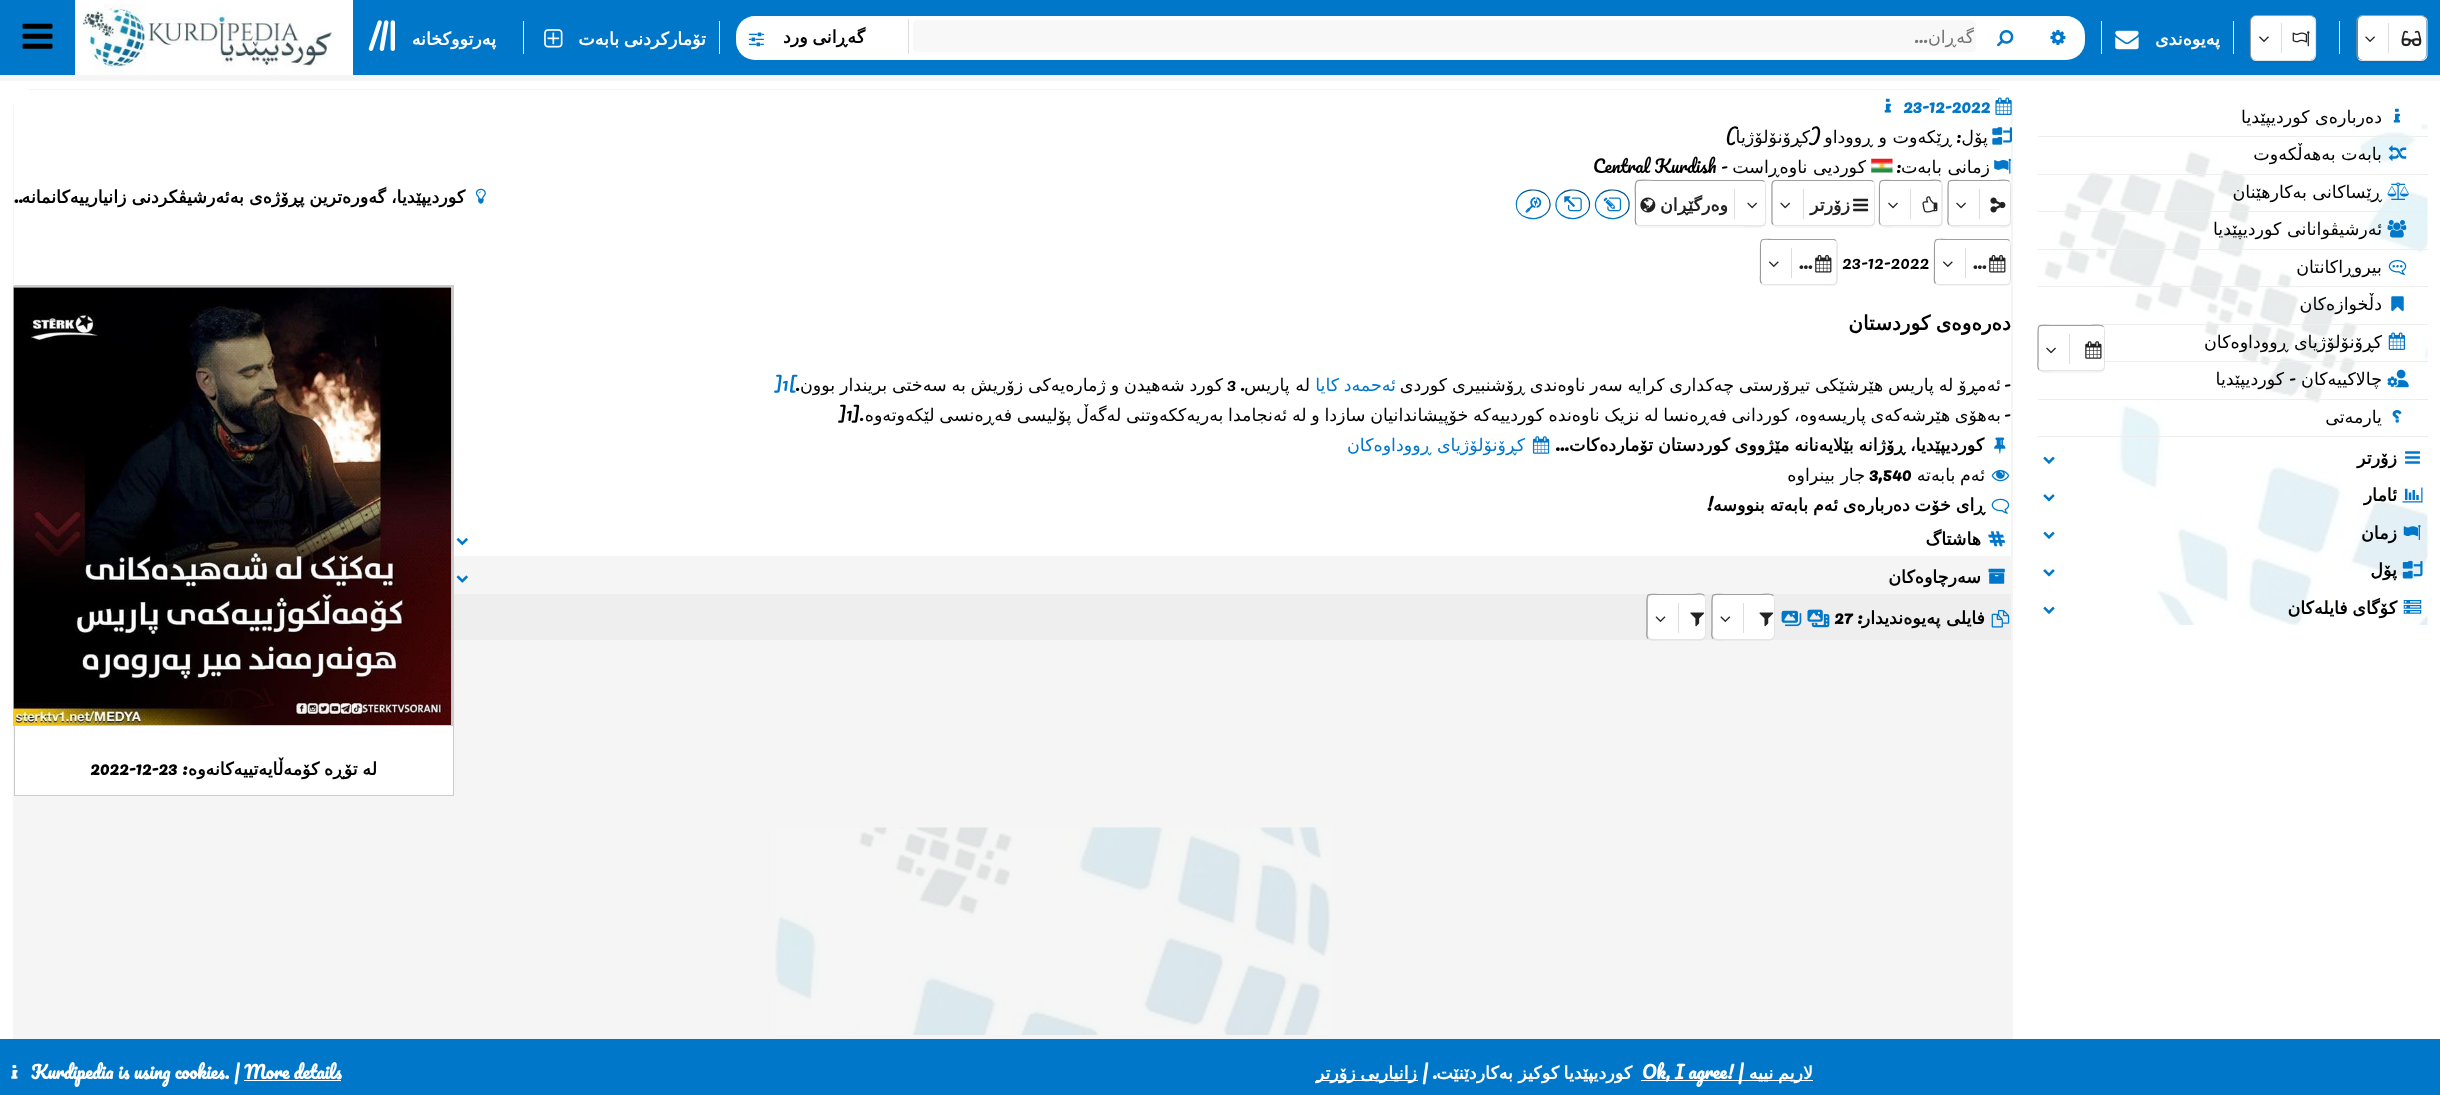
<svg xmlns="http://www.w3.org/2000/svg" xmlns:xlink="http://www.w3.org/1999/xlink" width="2440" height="1095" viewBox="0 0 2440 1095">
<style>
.cls-1{font:bold 17.5px DejaVu Sans;direction:rtl;fill:#ffffff}
.cls-2{font:17.5px DejaVu Sans;direction:rtl;fill:#757575}
.cls-3{font:17.5px Pacifico;direction:rtl;fill:#757575}
.cls-4{font:bold 17.5px DejaVu Sans;direction:rtl;fill:#000000}
.cls-5{font:17.5px DejaVu Sans;direction:rtl;fill:#000000}
.cls-6{font:17.5px Pacifico;direction:rtl;fill:#000000}
.cls-7{font:bold 17.5px Pacifico;fill:#0077c8}
.cls-8{font:17.5px Pacifico;fill:#000000}
.cls-9{font:bold 17.5px Pacifico;direction:rtl;fill:#000000}
.cls-10{font:bold 17.5px DejaVu Sans;direction:rtl;fill:#222222}
.cls-11{font:bold 17.5px Pacifico;fill:#222222}
.cls-12{font:bold 20px DejaVu Sans;direction:rtl;fill:#000000}
.cls-13{font:17.5px DejaVu Sans;direction:rtl;fill:#0077c8}
.cls-14{font:17.5px Pacifico;fill:#0077c8}
.cls-15{font:bold 17.5px Pacifico;fill:#000000}
.cls-16{font:bold 17.5px Pacifico;fill:#ffffff}
.cls-17{font:bold 17.5px Pacifico;direction:rtl;fill:#ffffff}
</style>
<defs>
<clipPath id="clip1"><rect x="933" y="21" width="1041" height="30"/></clipPath>
</defs>
<rect width="100%" height="100%" fill="#ffffff"/>
<rect fill="#0077c8" x="0" y="0" width="2440" height="75"/>
<path fill="none" stroke="#eeeeee" stroke-width="1.2" d="M2425 17.5C2426.5 18.5 2427 20 2427 21V55C2427 56.5 2426.5 58 2425 59C2424 60 2422.5 60.5 2421 60.5H2362.5C2361 60.5 2359.5 60 2358.5 59"/>
<path fill="none" stroke="#9f9f9f" stroke-width="1.2" d="M2358.5 59C2357.5 58 2357 56.5 2357 55V21C2357 20 2357.5 18.5 2358.5 17.5C2359.5 16 2361 15.5 2362.5 15.5H2421C2422.5 15.5 2424 16 2425 17.5"/>
<path fill="#000000" fill-opacity="0.04" fill-rule="evenodd" d="M2362 16C2359 16 2356 19 2356 22V57C2356 60 2359 63 2362 63H2422C2425 63 2428 60 2428 57V22C2428 19 2425 16 2422 16ZM2362 16C2360 16 2358 18 2358 21V55C2358 58 2360 60 2362 60H2421C2424 60 2426 58 2426 55V21C2426 18 2424 16 2421 16Z"/>
<rect fill="#ffffff" x="2358" y="16" width="68" height="44" rx="5"/>
<image xlink:href="image0.png" x="2401" y="30" width="21" height="17"/>
<rect fill="#dddddd" x="2388" y="23" width="1" height="30"/>
<image xlink:href="image1.png" x="2365" y="36" width="10" height="6"/>
<rect fill="#eeeeee" x="2339" y="21" width="1" height="33"/>
<path fill="none" stroke="#eeeeee" stroke-width="1.2" d="M2314 17.5C2315 18.5 2315.5 20 2315.5 21V55C2315.5 56.5 2315 58 2314 59C2313 60 2311.5 60.5 2310 60.5H2256C2255 60.5 2253.5 60 2252.5 59"/>
<path fill="none" stroke="#9f9f9f" stroke-width="1.2" d="M2252.5 59C2251 58 2250.5 56.5 2250.5 55V21C2250.5 20 2251 18.5 2252.5 17.5C2253.5 16 2255 15.5 2256 15.5H2310C2311.5 15.5 2313 16 2314 17.5"/>
<path fill="#000000" fill-opacity="0.04" fill-rule="evenodd" d="M2256 16C2253 16 2250 19 2250 22V57C2250 60 2253 63 2256 63H2310C2313 63 2316 60 2316 57V22C2316 19 2313 16 2310 16ZM2256 16C2253 16 2251 18 2251 21V55C2251 58 2253 60 2256 60H2310C2313 60 2315 58 2315 55V21C2315 18 2313 16 2310 16Z"/>
<rect fill="#ffffff" x="2251" y="16" width="64" height="44" rx="5"/>
<image xlink:href="image2.png" x="2292" y="31" width="18" height="16"/>
<rect fill="#dddddd" x="2281" y="23" width="1" height="30"/>
<image xlink:href="image3.png" x="2259" y="36" width="10" height="6"/>
<rect fill="#eeeeee" x="2233" y="21" width="1" height="33"/>
<rect fill="#eeeeee" x="2101" y="21" width="1" height="33"/>
<image xlink:href="image4.png" x="2115" y="30" width="24" height="20"/>
<rect fill="#ffffff" x="736" y="16" width="1349" height="44" rx="19"/>
<image xlink:href="image5.png" x="2050" y="30" width="16" height="15"/>
<image xlink:href="image6.png" x="1997" y="30" width="17" height="17"/>
<image xlink:href="image7.png" x="913" y="20" width="1063" height="32"/>
<rect fill="#dddddd" x="908" y="19" width="1" height="35"/>
<image xlink:href="image8.png" x="748" y="32" width="16" height="15"/>
<rect fill="#eeeeee" x="719" y="21" width="1" height="33"/>
<image xlink:href="image9.png" x="544" y="29" width="19" height="19"/>
<rect fill="#eeeeee" x="523" y="21" width="1" height="33"/>
<image xlink:href="image10.png" x="368" y="20" width="27" height="31"/>
<rect fill="#ffffff" x="75" y="0" width="278" height="75"/>
<image xlink:href="image11.png" x="82" y="3" width="252" height="70"/>
<image xlink:href="image12.png" x="22" y="23" width="31" height="26"/>
<rect fill="#f5f5f5" x="0" y="75" width="2440" height="6"/>
<image xlink:href="image13.png" x="2044" y="120" width="384" height="505"/>
<rect fill="#eeeeee" x="2038" y="136" width="390" height="1"/>
<image xlink:href="image14.png" x="2393" y="108" width="7" height="15"/>
<rect fill="#eeeeee" x="2038" y="174" width="390" height="1"/>
<image xlink:href="image15.png" x="2388" y="145" width="19" height="16"/>
<rect fill="#eeeeee" x="2038" y="211" width="390" height="1"/>
<image xlink:href="image16.png" x="2387" y="182" width="22" height="18"/>
<rect fill="#eeeeee" x="2038" y="249" width="390" height="1"/>
<image xlink:href="image17.png" x="2387" y="220" width="20" height="18"/>
<rect fill="#eeeeee" x="2038" y="286" width="390" height="1"/>
<image xlink:href="image18.png" x="2388" y="260" width="19" height="15"/>
<rect fill="#eeeeee" x="2038" y="324" width="390" height="1"/>
<image xlink:href="image19.png" x="2391" y="296" width="13" height="15"/>
<rect fill="#eeeeee" x="2038" y="361" width="390" height="1"/>
<image xlink:href="image20.png" x="2388" y="332" width="17" height="18"/>
<path fill="none" stroke="#eeeeee" stroke-width="1.2" d="M2103.5 326.5C2105.5 328.5 2104.5 334 2104.5 335V361C2104.5 373 2104.5 370.5 2091 370.5H2051C2050.5 370.5 2041.5 372 2039 369.5"/>
<path fill="none" stroke="#9f9f9f" stroke-width="1.2" d="M2039 369.5C2037 368 2038 362.5 2038 361V335C2038 323 2038 325.5 2051 325.5H2091C2092 325.5 2101 324 2103.5 326.5"/>
<path fill="#000000" fill-opacity="0.04" fill-rule="evenodd" d="M2044 326C2041 326 2038 329 2038 332V367C2038 370 2041 373 2044 373H2099C2102 373 2105 370 2105 367V332C2105 329 2102 326 2099 326ZM2044 326C2041 326 2039 328 2039 331V365C2039 368 2041 370 2044 370H2099C2102 370 2104 368 2104 365V331C2104 328 2102 326 2099 326Z"/>
<rect fill="#ffffff" x="2039" y="326" width="65" height="44" rx="5"/>
<image xlink:href="image21.png" x="2085" y="341" width="17" height="18"/>
<rect fill="#dddddd" x="2069" y="334" width="1" height="30"/>
<image xlink:href="image22.png" x="2046" y="347" width="10" height="7"/>
<rect fill="#eeeeee" x="2038" y="399" width="390" height="1"/>
<image xlink:href="image23.png" x="2387" y="369" width="22" height="19"/>
<rect fill="#eeeeee" x="2038" y="436" width="390" height="1"/>
<image xlink:href="image24.png" x="2392" y="410" width="10" height="13"/>
<image xlink:href="image25.png" x="2405" y="451" width="15" height="13"/>
<image xlink:href="image26.png" x="2043" y="456" width="12" height="8"/>
<image xlink:href="image27.png" x="2402" y="487" width="21" height="16"/>
<image xlink:href="image28.png" x="2043" y="494" width="12" height="8"/>
<image xlink:href="image29.png" x="2403" y="525" width="18" height="15"/>
<image xlink:href="image26.png" x="2043" y="531" width="12" height="8"/>
<image xlink:href="image30.png" x="2402" y="560" width="21" height="19"/>
<image xlink:href="image28.png" x="2043" y="569" width="12" height="8"/>
<image xlink:href="image31.png" x="2403" y="600" width="19" height="14"/>
<image xlink:href="image26.png" x="2043" y="606" width="12" height="8"/>
<rect fill="#f5f5f5" x="13" y="89" width="2000" height="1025" rx="19"/>
<rect fill="#ffffff" x="14" y="90" width="1997" height="466"/>
<image xlink:href="image32.png" x="1995" y="97" width="17" height="18"/>
<image xlink:href="image33.png" x="1884" y="98" width="7" height="15"/>
<image xlink:href="image34.png" x="1992" y="127" width="20" height="18"/>
<image xlink:href="image35.png" x="1994" y="158" width="17" height="16"/>
<image xlink:href="image36.png" x="1871" y="158" width="22" height="15"/>
<image xlink:href="image37.png" x="475" y="188" width="11" height="16"/>
<path fill="none" stroke="#eeeeee" stroke-width="1.2" d="M2009.5 181.5C2011.5 183.5 2010.5 189 2010.5 190V216C2010.5 228 2010.5 225.5 1998 225.5H1960.5C1959.5 225.5 1951.5 227 1949 224.5"/>
<path fill="none" stroke="#9f9f9f" stroke-width="1.2" d="M1949 224.5C1947 223 1948 217.5 1948 216V190C1948 178.5 1948 180.5 1960.5 180.5H1998C1999 180.5 2007.5 179 2009.5 181.5"/>
<path fill="#000000" fill-opacity="0.04" fill-rule="evenodd" d="M1954 181C1951 181 1948 184 1948 187V222C1948 225 1951 228 1954 228H2005C2008 228 2011 225 2011 222V187C2011 184 2008 181 2005 181ZM1954 181C1951 181 1949 183 1949 186V220C1949 223 1951 225 1954 225H2005C2008 225 2010 223 2010 220V186C2010 183 2008 181 2005 181Z"/>
<rect fill="#ffffff" x="1949" y="181" width="61" height="44" rx="5"/>
<image xlink:href="image38.png" x="1990" y="197" width="16" height="16"/>
<rect fill="#dddddd" x="1979" y="189" width="1" height="30"/>
<image xlink:href="image22.png" x="1956" y="202" width="10" height="7"/>
<path fill="none" stroke="#eeeeee" stroke-width="1.2" d="M1941 181.5C1943 183.5 1942 189 1942 190V216C1942 228 1942 225.5 1929.5 225.5H1892C1891 225.5 1882.5 227 1880.5 224.5"/>
<path fill="none" stroke="#9f9f9f" stroke-width="1.2" d="M1880.5 224.5C1878.5 223 1879.5 217.5 1879.5 216V190C1879.5 178.5 1879.5 180.5 1892 180.5H1929.5C1930.5 180.5 1938.5 179 1941 181.5"/>
<path fill="#000000" fill-opacity="0.04" fill-rule="evenodd" d="M1885 181C1882 181 1879 184 1879 187V222C1879 225 1882 228 1885 228H1937C1940 228 1943 225 1943 222V187C1943 184 1940 181 1937 181ZM1885 181C1882 181 1880 183 1880 186V220C1880 223 1882 225 1885 225H1936C1939 225 1941 223 1941 220V186C1941 183 1939 181 1936 181Z"/>
<rect fill="#ffffff" x="1880" y="181" width="61" height="44" rx="5"/>
<image xlink:href="image39.png" x="1922" y="196" width="16" height="17"/>
<rect fill="#dddddd" x="1910" y="189" width="1" height="30"/>
<image xlink:href="image40.png" x="1888" y="202" width="10" height="7"/>
<path fill="none" stroke="#eeeeee" stroke-width="1.2" d="M1873.5 181.5L1874.5 184V222.5L1873.5 224.5L1871 225.5H1775L1773 224.5"/>
<path fill="none" stroke="#9f9f9f" stroke-width="1.2" d="M1773 224.5L1772 222.5V184L1773 181.5L1775 180.5H1871L1873.5 181.5"/>
<path fill="#000000" fill-opacity="0.04" fill-rule="evenodd" d="M1777 181C1774 181 1771 184 1771 187V222C1771 225 1774 228 1777 228H1869C1872 228 1875 225 1875 222V187C1875 184 1872 181 1869 181ZM1778 181C1775 181 1772 183 1772 186V220C1772 223 1775 225 1778 225H1869C1872 225 1874 223 1874 220V186C1874 183 1872 181 1869 181Z"/>
<rect fill="#ffffff" x="1773" y="181" width="101" height="44" rx="5"/>
<image xlink:href="image41.png" x="1853" y="198" width="16" height="14"/>
<rect fill="#dddddd" x="1803" y="189" width="1" height="30"/>
<image xlink:href="image42.png" x="1780" y="202" width="10" height="7"/>
<path fill="none" stroke="#eeeeee" stroke-width="1.2" d="M1764.5 181.5C1766.5 183.5 1765.5 189 1765.5 190V203C1765.5 231 1771 225.5 1742 225.5H1639L1636.5 224.5"/>
<path fill="none" stroke="#9f9f9f" stroke-width="1.2" d="M1636.5 224.5C1634.5 223 1635.5 217.5 1635.5 216V203C1635.5 175.5 1630.5 180.5 1659.5 180.5H1762.5L1764.5 181.5"/>
<path fill="#000000" fill-opacity="0.04" fill-rule="evenodd" d="M1641 181C1638 181 1635 184 1635 187V222C1635 225 1638 228 1641 228H1760C1763 228 1766 225 1766 222V187C1766 184 1763 181 1760 181ZM1641 181C1638 181 1636 183 1636 186V220C1636 223 1638 225 1641 225H1760C1763 225 1765 223 1765 220V186C1765 183 1763 181 1760 181Z"/>
<rect fill="#ffffff" x="1636" y="181" width="129" height="44" rx="5"/>
<image xlink:href="image43.png" x="1747" y="202" width="10" height="7"/>
<rect fill="#dddddd" x="1734" y="189" width="1" height="30"/>
<image xlink:href="image44.png" x="1640" y="197" width="16" height="16"/>
<path fill="none" stroke="#0077c8" stroke-width="1.2" d="M1600.5 194C1598 196.5 1596 199.5 1595.5 203C1594 217.5 1614.5 223 1624.5 214.5"/>
<path fill="none" stroke="#004f85" stroke-width="1.2" d="M1624.5 214.5C1627 212.5 1629 209 1629 206C1631 191 1610.5 185.5 1600.5 194"/>
<image xlink:href="image45.png" x="1603" y="197" width="19" height="15"/>
<path fill="none" stroke="#0077c8" stroke-width="1.2" d="M1561 194C1558 196.5 1556.5 199.5 1556 203C1554.5 217.5 1574.5 223 1584.5 214.5"/>
<path fill="none" stroke="#004f85" stroke-width="1.2" d="M1584.5 214.5C1587.5 212.5 1589 209 1589.5 206C1591 191 1571 185.5 1561 194"/>
<image xlink:href="image46.png" x="1564" y="196" width="18" height="16"/>
<path fill="none" stroke="#0077c8" stroke-width="1.2" d="M1521 194C1518.5 196.5 1516.5 199.5 1516.5 203C1514.5 217.5 1535 223 1545 214.5"/>
<path fill="none" stroke="#004f85" stroke-width="1.2" d="M1545 214.5C1547.5 212.5 1549.5 209 1550 206C1551.5 191 1531 185.5 1521 194"/>
<image xlink:href="image47.png" x="1525" y="197" width="17" height="16"/>
<path fill="none" stroke="#eeeeee" stroke-width="1.2" d="M2009.5 240.5C2011.5 242 2010.5 247.5 2010.5 249V275C2010.5 287.5 2010 284.5 1996 284.5H1937.5L1935.5 283.5"/>
<path fill="none" stroke="#9f9f9f" stroke-width="1.2" d="M1935.5 283.5C1933.5 281.5 1934.5 276 1934.5 275V249C1934.5 236.5 1935 239.5 1949 239.5H2007.5L2009.5 240.5"/>
<path fill="#000000" fill-opacity="0.04" d="M1940 240C1937 240 1934 243 1934 246V280C1934 283 1937 286 1940 286H2005C2008 286 2011 283 2011 280V246C2011 243 2008 240 2005 240C2008 240 2010 242 2010 245V279C2010 282 2008 284 2005 284H1940C1937 284 1935 282 1935 279V245C1935 242 1937 240 1940 240Z"/>
<rect fill="#ffffff" x="1935" y="240" width="75" height="44" rx="5"/>
<image xlink:href="image48.png" x="1989" y="255" width="17" height="18"/>
<rect fill="#dddddd" x="1965" y="248" width="1" height="30"/>
<image xlink:href="image49.png" x="1943" y="261" width="10" height="6"/>
<path fill="none" stroke="#eeeeee" stroke-width="1.2" d="M1836 240.5C1838 242 1837 247.5 1837 249V275C1837 287.5 1836.5 284.5 1822 284.5H1764L1761.5 283.5"/>
<path fill="none" stroke="#9f9f9f" stroke-width="1.2" d="M1761.5 283.5C1759.5 281.5 1760.5 276 1760.5 275V249C1760.5 236.5 1761 239.5 1775.5 239.5H1834L1836 240.5"/>
<path fill="#000000" fill-opacity="0.04" d="M1766 240C1763 240 1760 243 1760 246V280C1760 283 1763 286 1766 286H1832C1835 286 1838 283 1838 280V246C1838 243 1835 240 1832 240H1831C1834 240 1836 242 1836 245V279C1836 282 1834 284 1831 284H1766C1763 284 1761 282 1761 279V245C1761 242 1763 240 1766 240Z"/>
<rect fill="#ffffff" x="1761" y="240" width="75" height="44" rx="5"/>
<image xlink:href="image50.png" x="1815" y="255" width="17" height="18"/>
<rect fill="#dddddd" x="1791" y="248" width="1" height="30"/>
<image xlink:href="image51.png" x="1769" y="261" width="10" height="6"/>
<image xlink:href="image52.png" x="1994" y="437" width="12" height="17"/>
<image xlink:href="image53.png" x="1532" y="436" width="18" height="18"/>
<rect fill="#ffffff" x="15" y="726" width="438" height="69"/>
<rect fill="none" stroke="#cccccc" x="14.5" y="285.5" width="439" height="510"/>
<rect fill="#ffffff" stroke="#cccccc" x="13.5" y="286.5" width="439" height="439"/>
<image xlink:href="image54.png" x="13" y="287" width="439" height="438"/>
<image xlink:href="image55.png" x="1991" y="470" width="19" height="12"/>
<image xlink:href="image56.png" x="1991" y="498" width="19" height="16"/>
<image xlink:href="image57.png" x="1988" y="531" width="18" height="16"/>
<image xlink:href="image58.png" x="456" y="538" width="12" height="8"/>
<image xlink:href="image59.png" x="1988" y="568" width="17" height="16"/>
<image xlink:href="image60.png" x="456" y="575" width="12" height="8"/>
<rect fill="#eeeeee" x="454" y="594" width="1557" height="46"/>
<image xlink:href="image61.png" x="1991" y="610" width="19" height="18"/>
<image xlink:href="image62.png" x="1807" y="609" width="23" height="19"/>
<image xlink:href="image63.png" x="1781" y="610" width="21" height="17"/>
<path fill="none" stroke="#eeeeee" stroke-width="1.2" d="M1773.5 595.5C1775.5 597 1774.5 602.5 1774.5 604V630C1774.5 641.5 1774.5 639.5 1762 639.5H1724.5C1723.5 639.5 1715 641 1713 638.5"/>
<path fill="none" stroke="#9f9f9f" stroke-width="1.2" d="M1713 638.5C1711 636.5 1712 631 1712 630V604C1712 592 1712 594.5 1724.5 594.5H1762C1763 594.5 1771 593 1773.5 595.5"/>
<path fill="#000000" fill-opacity="0.04" d="M1717 595C1714 595 1711 598 1711 601V635C1711 638 1714 641 1717 641H1769C1772 641 1775 638 1775 635V601C1775 598 1772 595 1769 595C1772 595 1774 597 1774 600V634C1774 637 1772 639 1769 639H1718C1715 639 1712 637 1712 634V600C1712 597 1715 595 1718 595Z"/>
<rect fill="#ffffff" x="1713" y="595" width="61" height="44" rx="5"/>
<image xlink:href="image64.png" x="1759" y="612" width="15" height="15"/>
<rect fill="#dddddd" x="1743" y="603" width="1" height="30"/>
<image xlink:href="image65.png" x="1720" y="616" width="11" height="6"/>
<path fill="none" stroke="#eeeeee" stroke-width="1.2" d="M1704.5 595.5C1706.5 597 1705.5 602.5 1705.5 604V630C1705.5 641.5 1706 639.5 1694 639.5H1659C1658.5 639.5 1650 641 1648 638.5"/>
<path fill="none" stroke="#9f9f9f" stroke-width="1.2" d="M1648 638.5C1646 636.5 1647 631 1647 630V604C1647 592.5 1646.5 594.5 1659 594.5H1694C1694 594.5 1702.5 593 1704.5 595.5"/>
<path fill="#000000" fill-opacity="0.04" d="M1652 595C1649 595 1646 598 1646 601V635C1646 638 1649 641 1652 641H1700C1703 641 1706 638 1706 635V601C1706 598 1703 595 1700 595C1703 595 1705 597 1705 600V634C1705 637 1703 639 1700 639H1652C1650 639 1648 637 1648 634V600C1648 597 1650 595 1652 595Z"/>
<rect fill="#ffffff" x="1648" y="595" width="57" height="44" rx="5"/>
<image xlink:href="image66.png" x="1690" y="612" width="15" height="15"/>
<rect fill="#dddddd" x="1678" y="603" width="1" height="30"/>
<image xlink:href="image67.png" x="1655" y="616" width="11" height="6"/>
<image xlink:href="image68.png" x="775" y="827" width="556" height="208"/>
<rect fill="#0077c8" x="0" y="1039" width="2440" height="56"/>
<rect fill="#ffffff" x="1641" y="1080" width="172" height="1"/>
<rect fill="#ffffff" x="1316" y="1080" width="102" height="1"/>
<image xlink:href="image69.png" x="11" y="1065" width="7" height="14"/>
<rect fill="#ffffff" x="244" y="1080" width="97" height="1"/>
<text class="cls-1" x="2220" y="45">پەیوەندی</text>
<g clip-path="url(#clip1)">
<text class="cls-2" x="1974" y="43">گەڕان</text>
</g>
<text class="cls-3" x="1928" y="43">...</text>
<text class="cls-4" x="865" y="43" word-spacing="-1">گەڕانی ورد</text>
<text class="cls-1" x="706" y="45" word-spacing="-1">تۆمارکردنی بابەت</text>
<text class="cls-1" x="496" y="45">پەرتووکخانە</text>
<text class="cls-5" x="2382" y="123">دەربارەی کوردیپێدیا</text>
<text class="cls-5" x="2382" y="160">بابەت بەهەڵکەوت</text>
<text class="cls-5" x="2382" y="198">ڕێساکانی بەکارهێنان</text>
<text class="cls-5" x="2382" y="235">ئەرشیڤوانانی کوردیپێدیا</text>
<text class="cls-5" x="2382" y="273">بیروڕاکانتان</text>
<text class="cls-5" x="2382" y="310">دڵخوازەکان</text>
<text class="cls-5" x="2382" y="348">کڕۆنۆلۆژیای ڕووداوەکان</text>
<text class="cls-5" x="2382" y="385">چالاکییەکان</text>
<text class="cls-6" x="2296" y="385">-</text>
<text class="cls-5" x="2284" y="385">کوردیپێدیا</text>
<text class="cls-5" x="2382" y="423">یارمەتی</text>
<text class="cls-4" x="2397" y="464">زۆرتر</text>
<text class="cls-4" x="2397" y="501">ئامار</text>
<text class="cls-4" x="2397" y="539">زمان</text>
<text class="cls-4" x="2397" y="576">پۆل</text>
<text class="cls-4" x="2397" y="614" word-spacing="-1">کۆگای فایلەکان</text>
<text class="cls-7" x="1903" y="113">23-12-2022</text>
<text class="cls-5" x="1988" y="143">پۆل</text>
<text class="cls-6" x="1961" y="143">:</text>
<text class="cls-5" x="1952" y="143">ڕێکەوت و ڕووداو</text>
<text class="cls-6" x="1821" y="143">(</text>
<text class="cls-5" x="1810" y="143">کڕۆنۆلۆژیا</text>
<text class="cls-6" x="1736" y="143">)</text>
<text class="cls-5" x="1990" y="173">زمانی بابەت</text>
<text class="cls-6" x="1901" y="173">:</text>
<text class="cls-5" x="1866" y="173">کوردیی ناوەڕاست</text>
<text class="cls-6" x="1728" y="173">-</text>
<text class="cls-8" x="1593" y="173">Central Kurdish</text>
<text class="cls-4" x="465" y="203" word-spacing="-0.5">کوردیپێدیا، گەورەترین پڕۆژەی بەئەرشیڤکردنی زانیارییەکانمانە</text>
<text class="cls-9" x="23" y="203">..</text>
<text class="cls-10" x="1850" y="211">زۆرتر</text>
<text class="cls-10" x="1728" y="211">وەرگێڕان</text>
<text class="cls-11" x="1973" y="269">...</text>
<text class="cls-8" x="1842" y="269">23-12-2022</text>
<text class="cls-11" x="1799" y="269">...</text>
<text class="cls-12" x="2011" y="330" word-spacing="-1">دەرەوەی کوردستان</text>
<text class="cls-6" x="2011" y="391">-</text>
<text class="cls-5" x="2001" y="391" word-spacing="-0.75">ئەمڕۆ لە پاریس هێرشێکی تیرۆرستی چەکداری کرایە سەر ناوەندی ڕۆشنبیری کوردی</text>
<text class="cls-13" x="1396" y="391" word-spacing="-1">ئەحمەد کایا</text>
<text class="cls-5" x="1310" y="391">لە پاریس</text>
<text class="cls-8" x="1227" y="391">3</text>
<text class="cls-5" x="1223" y="391" word-spacing="-0.75">کورد شەهیدن و ژمارەیەکی زۆریش بە سەختی بریندار بوون</text>
<text class="cls-6" x="1245" y="391">.</text>
<text class="cls-6" x="800" y="391">.</text>
<text class="cls-14" x="775" y="391">]1[</text>
<text class="cls-6" x="2011" y="421">-</text>
<text class="cls-6" x="864" y="421">.[</text>
<text class="cls-5" x="2001" y="421" word-spacing="-0.9">بەهۆی هێرشەکەی پاریسەوە، کوردانی فەڕەنسا لە نزیک ناوەندە کوردییەکە خۆپیشاندانیان سازدا و لە ئەنجامدا بەریەککەوتنی لەگەڵ پۆلیسی فەڕەنسی لێکەوتەوە</text>
<text class="cls-8" x="839" y="421">]1</text>
<text class="cls-4" x="1984" y="451" word-spacing="-0.75">کوردیپێدیا، ڕۆژانە بێلایەنانە مێژووی کوردستان تۆماردەکات</text>
<text class="cls-9" x="1569" y="451">...</text>
<text class="cls-13" x="1525" y="451">کڕۆنۆلۆژیای ڕووداوەکان</text>
<text class="cls-4" x="377" y="775" word-spacing="-1">لە تۆڕە کۆمەڵایەتییەکانەوە</text>
<text class="cls-9" x="187" y="775">:</text>
<text class="cls-15" x="90" y="775">2022-12-23</text>
<text class="cls-5" x="1985" y="481" word-spacing="-1">ئەم بابەتە</text>
<text class="cls-15" x="1869" y="481">3,540</text>
<text class="cls-5" x="1865" y="481">جار بینراوە</text>
<text class="cls-4" x="1985" y="511" word-spacing="-0.75">ڕای خۆت دەربارەی ئەم بابەتە بنووسە</text>
<text class="cls-9" x="1713" y="511">!</text>
<text class="cls-4" x="1981" y="545">هاشتاگ</text>
<text class="cls-4" x="1981" y="583">سەرچاوەکان</text>
<text class="cls-9" x="1862" y="624">:</text>
<text class="cls-4" x="1985" y="624">فایلی پەیوەندیدار</text>
<text class="cls-15" x="1834" y="624">27</text>
<text class="cls-1" x="1813" y="1079" word-spacing="-1">لاریم نییە</text>
<text class="cls-16" x="1642" y="1079">Ok, I agree! |</text>
<text class="cls-1" x="1632" y="1079">کوردیپێدیا</text>
<text class="cls-1" x="1559" y="1079">کوکیز</text>
<text class="cls-1" x="1513" y="1079">بەکاردێنێت</text>
<text class="cls-17" x="1437" y="1079">. |</text>
<text class="cls-1" x="1417" y="1079" word-spacing="-1">زانیاریی زۆرتر</text>
<text class="cls-16" x="31" y="1079">Kurdipedia is using cookies. | More details</text>
</svg>
